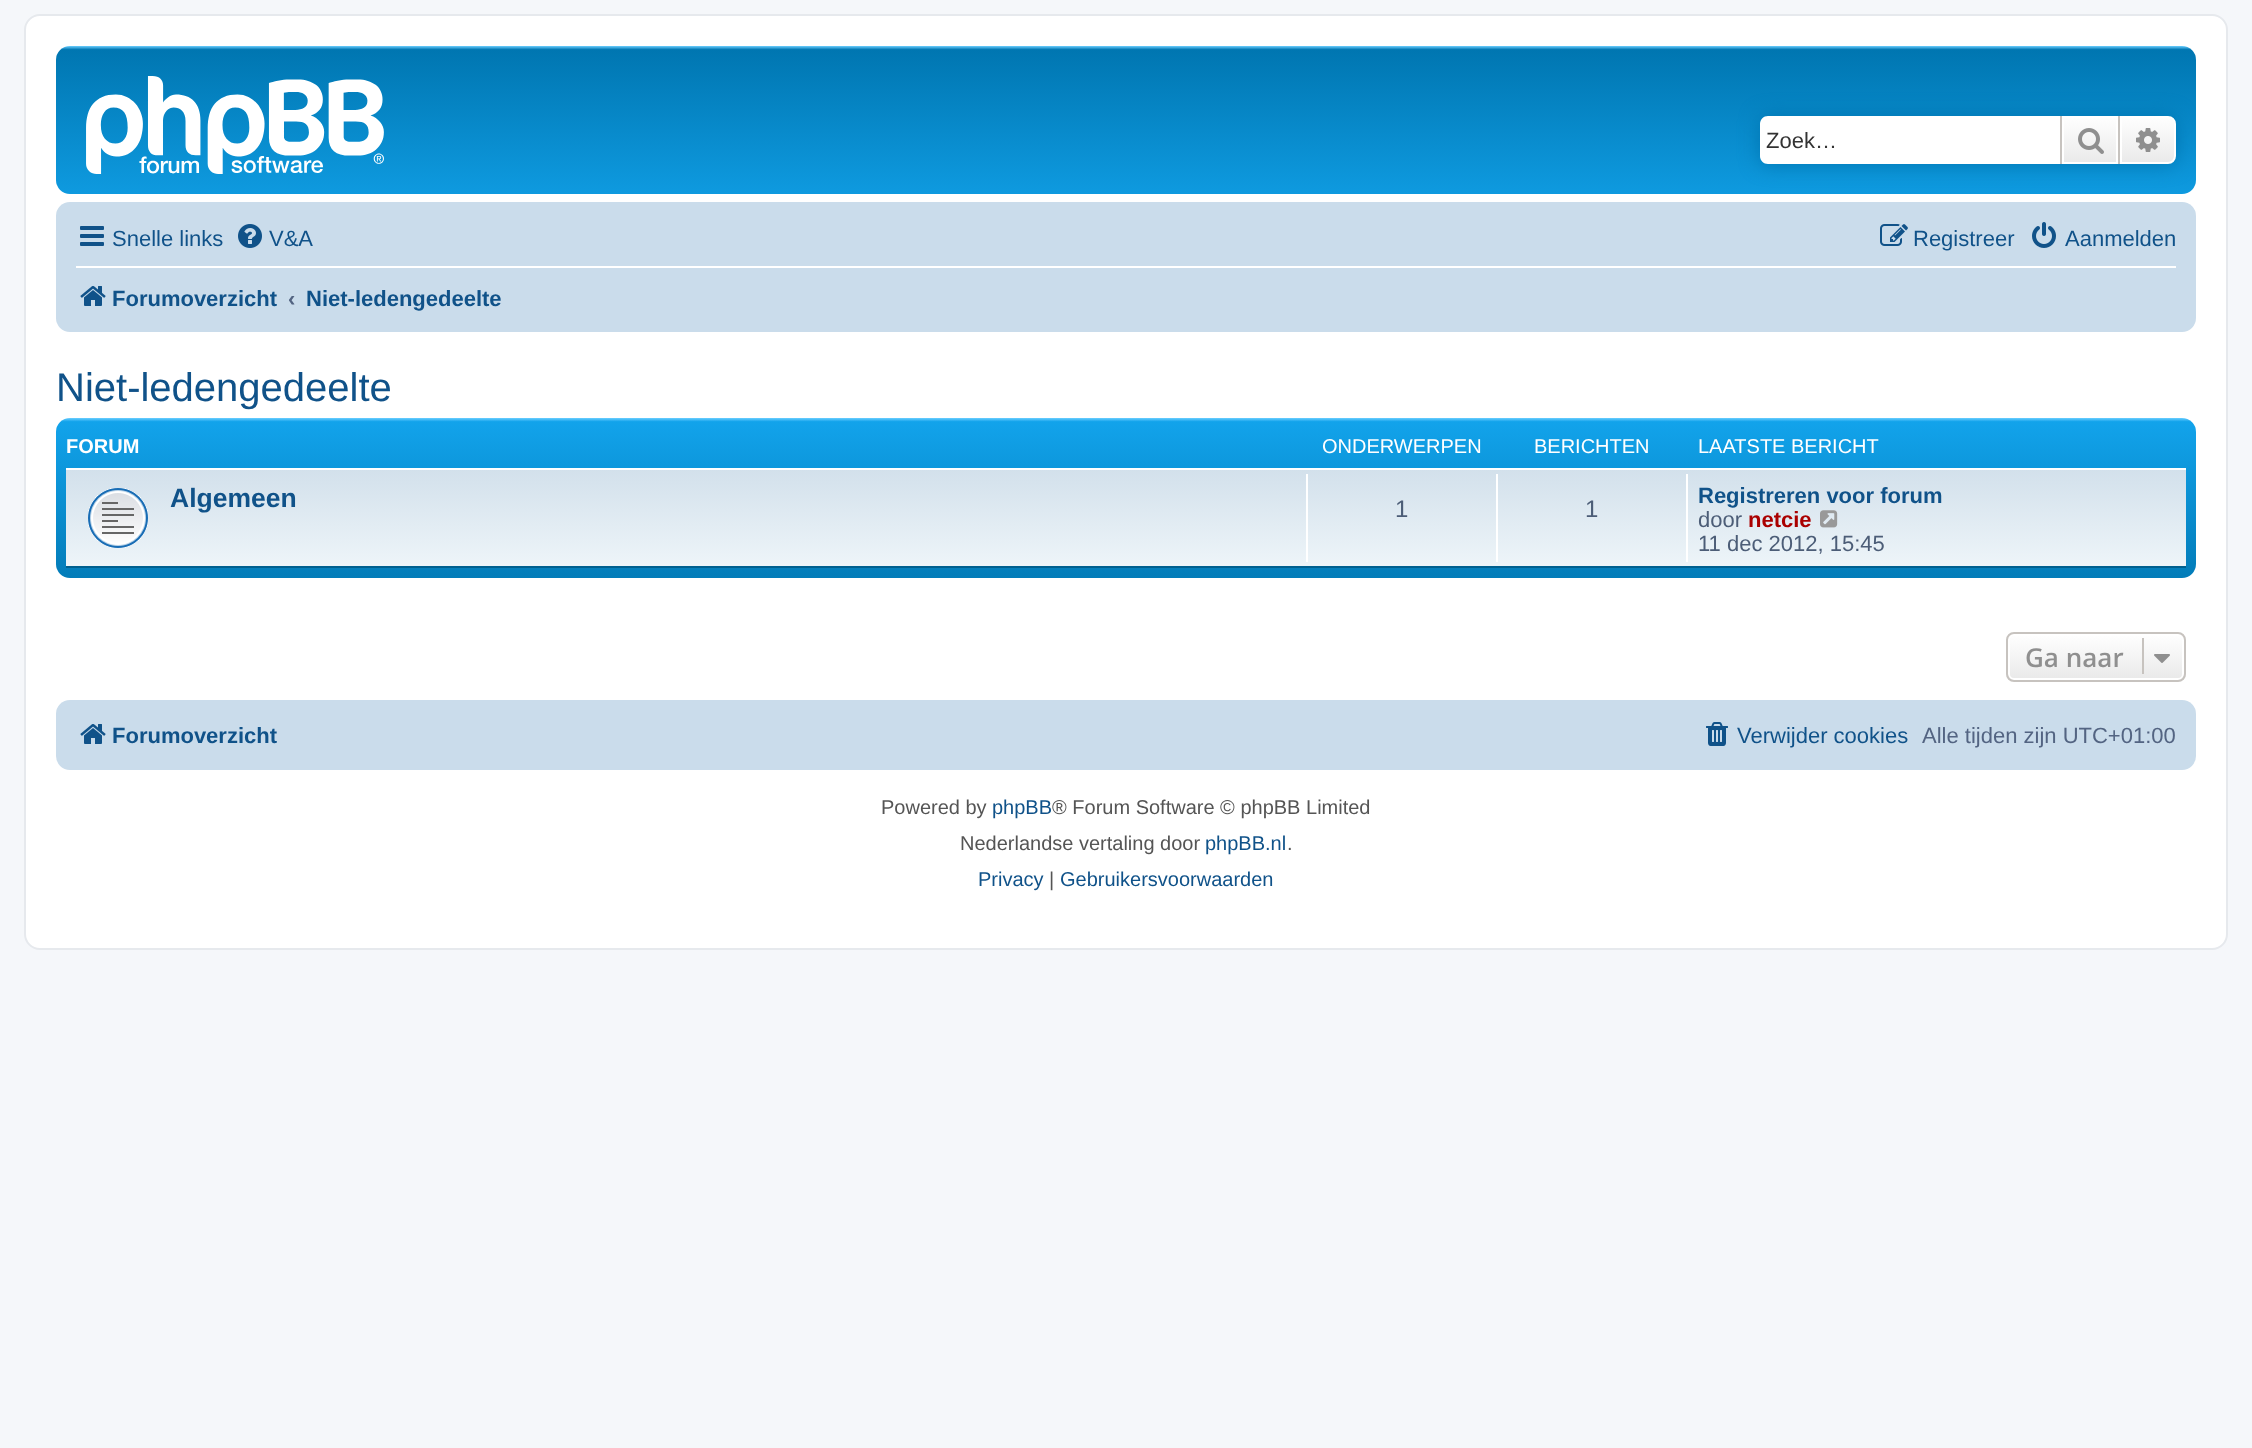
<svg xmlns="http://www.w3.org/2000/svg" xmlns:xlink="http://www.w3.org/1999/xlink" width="2252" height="1448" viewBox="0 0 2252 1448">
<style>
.cls-1{font:22px Liberation Sans;fill:#333333}
.cls-2{font:22px Liberation Sans;fill:#105289}
.cls-3{font:bold 22px Liberation Sans;fill:#105289}
.cls-4{font:bold 22px Liberation Sans;fill:#536482}
.cls-5{font:40px Liberation Sans;fill:#105289}
.cls-6{font:bold 20px Liberation Sans;fill:#ffffff}
.cls-7{font:20px Liberation Sans;fill:#ffffff}
.cls-8{font:bold 26.5px Liberation Sans;fill:#105289}
.cls-9{font:24px Liberation Sans;fill:#4c5d77}
.cls-10{font:22px Liberation Sans;fill:#4c5d77}
.cls-11{font:bold 22px Liberation Sans;fill:#aa0000}
.cls-12{font:600 26px Open Sans;fill:#8f8f8f}
.cls-13{font:22px Liberation Sans;fill:#536482}
.cls-14{font:20px Liberation Sans;fill:#555555}
.cls-15{font:20px Liberation Sans;fill:#105289}
</style>
<defs>
<linearGradient id="g1" gradientUnits="userSpaceOnUse" x1="1126" y1="46" x2="1126" y2="230"><stop offset="0" stop-color="#6aceff"/><stop offset="0.02" stop-color="#0076b1"/><stop offset="1" stop-color="#12a3eb"/></linearGradient>
<linearGradient id="g2" gradientUnits="userSpaceOnUse" x1="2090" y1="116" x2="2090" y2="164"><stop offset="0" stop-color="#ffffff"/><stop offset="1" stop-color="#e9e9e9"/></linearGradient>
<linearGradient id="g3" gradientUnits="userSpaceOnUse" x1="2148" y1="116" x2="2148" y2="164"><stop offset="0" stop-color="#ffffff"/><stop offset="1" stop-color="#e9e9e9"/></linearGradient>
<linearGradient id="g4" gradientUnits="userSpaceOnUse" x1="1126" y1="418" x2="1126" y2="602"><stop offset="0" stop-color="#6aceff"/><stop offset="0.02" stop-color="#12a3eb"/><stop offset="1" stop-color="#0076b1"/></linearGradient>
<linearGradient id="g5" gradientUnits="userSpaceOnUse" x1="1126" y1="468" x2="1126" y2="568"><stop offset="0" stop-color="#d2e0eb"/><stop offset="1" stop-color="#eef5f9"/></linearGradient>
<clipPath id="clip1"><rect x="2006" y="632" width="180" height="50" rx="8"/></clipPath>
<linearGradient id="g6" gradientUnits="userSpaceOnUse" x1="2096" y1="634" x2="2096" y2="680"><stop offset="0" stop-color="#ffffff"/><stop offset="1" stop-color="#e9e9e9"/></linearGradient>
</defs>
<rect width="100%" height="100%" fill="#f5f7fa"/>
<rect fill="#ffffff" stroke="#e6e9ed" stroke-width="2" x="25" y="15" width="2202" height="934" rx="15"/>
<rect fill="url(#g1)" x="56" y="46" width="2140" height="148" rx="14"/>
<image xlink:href="image0.png" x="86" y="76" width="298" height="98"/>
<rect fill="#0075b0" filter="blur(10px)" x="1760" y="116" width="416" height="48" rx="8"/>
<path fill="#ffffff" d="M1768 116H2060V164H1768C1763.5 164 1760 160.5 1760 156V124C1760 119.5 1763.5 116 1768 116Z"/>
<rect fill="url(#g2)" x="2064" y="118" width="52" height="44"/>
<rect fill="none" stroke="#ffffff" stroke-width="2" x="2063" y="117" width="54" height="46"/>
<rect fill="#c7c3bf" x="2118" y="116" width="2" height="48"/>
<rect fill="#c7c3bf" x="2060" y="116" width="2" height="48"/>
<image xlink:href="image1.png" x="2078" y="128" width="26" height="26"/>
<path fill="url(#g3)" stroke="#ffffff" stroke-width="2" d="M2121 117H2168C2172 117 2175 120 2175 124V156C2175 160 2172 163 2168 163H2121Z"/>
<image xlink:href="image2.png" x="2136" y="128" width="24" height="24"/>
<rect fill="#cadceb" x="56" y="202" width="2140" height="130" rx="14"/>
<image xlink:href="image3.png" x="80" y="226" width="24" height="20"/>
<image xlink:href="image4.png" x="238" y="224" width="24" height="24"/>
<image xlink:href="image5.png" x="1880" y="224" width="28" height="22"/>
<image xlink:href="image6.png" x="2032" y="222" width="24" height="26"/>
<rect fill="#ffffff" x="76" y="266" width="2100" height="2"/>
<image xlink:href="image7.png" x="80" y="286" width="26" height="20"/>
<rect fill="url(#g4)" x="56" y="418" width="2140" height="160" rx="14"/>
<rect fill="url(#g5)" x="66" y="470" width="2120" height="96"/>
<rect fill="#ffffff" x="66" y="468" width="2120" height="2"/>
<rect fill="#00608f" x="66" y="566" width="2120" height="2"/>
<image xlink:href="image8.png" x="88" y="488" width="60" height="60"/>
<rect fill="#ffffff" x="1306" y="474" width="2" height="88"/>
<rect fill="#ffffff" x="1496" y="474" width="2" height="88"/>
<rect fill="#ffffff" x="1686" y="474" width="2" height="88"/>
<image xlink:href="image9.png" x="1820" y="510" width="18" height="18"/>
<g clip-path="url(#clip1)">
<rect fill="url(#g6)" x="2006" y="634" width="180" height="46"/>
</g>
<rect fill="none" stroke="#ffffff" stroke-width="2" x="2009" y="635" width="174" height="44" rx="5"/>
<rect fill="none" stroke="#c7c3bf" stroke-width="2" x="2007" y="633" width="178" height="48" rx="7"/>
<rect fill="#c7c3bf" x="2142" y="638" width="2" height="36"/>
<image xlink:href="image10.png" x="2154" y="654" width="16" height="9"/>
<rect fill="#cadceb" x="56" y="700" width="2140" height="70" rx="14"/>
<image xlink:href="image7.png" x="80" y="724" width="26" height="20"/>
<image xlink:href="image11.png" x="1706" y="722" width="22" height="24"/>
<text class="cls-1" x="1766" y="148">Zoek…</text>
<text class="cls-2" x="112" y="246">Snelle links</text>
<text class="cls-2" x="269" y="246">V&amp;A</text>
<text class="cls-2" x="1913" y="246">Registreer</text>
<text class="cls-2" x="2065" y="246">Aanmelden</text>
<text class="cls-3" x="112" y="306">Forumoverzicht</text>
<text class="cls-4" x="288" y="306">‹</text>
<text class="cls-3" x="306" y="306">Niet-ledengedeelte</text>
<text class="cls-5" x="56" y="401">Niet-ledengedeelte</text>
<text class="cls-6" x="66" y="453">FORUM</text>
<text class="cls-7" x="1322" y="453">ONDERWERPEN</text>
<text class="cls-7" x="1534" y="453">BERICHTEN</text>
<text class="cls-7" x="1698" y="453">LAATSTE BERICHT</text>
<text class="cls-8" x="170" y="507">Algemeen</text>
<text class="cls-9" x="1395" y="517">1</text>
<text class="cls-9" x="1585" y="517">1</text>
<text class="cls-3" x="1698" y="503">Registreren voor forum</text>
<text class="cls-10" x="1698" y="527">door</text>
<text class="cls-11" x="1748" y="527">netcie</text>
<text class="cls-10" x="1698" y="551">11 dec 2012, 15:45</text>
<text class="cls-12" x="2025" y="667">Ga naar</text>
<text class="cls-3" x="112" y="743">Forumoverzicht</text>
<text class="cls-2" x="1737" y="743">Verwijder cookies</text>
<text class="cls-13" x="1922" y="743">Alle tijden zijn UTC+01:00</text>
<text class="cls-14" x="881" y="814">Powered by</text>
<text class="cls-15" x="992" y="814">phpBB</text>
<text class="cls-14" x="1052" y="814">® Forum Software © phpBB Limited</text>
<text class="cls-14" x="960" y="850">Nederlandse vertaling door</text>
<text class="cls-15" x="1205" y="850">phpBB.nl</text>
<text class="cls-14" x="1287" y="850">.</text>
<text class="cls-15" x="978" y="886">Privacy</text>
<text class="cls-14" x="1049" y="886">|</text>
<text class="cls-15" x="1060" y="886">Gebruikersvoorwaarden</text>
</svg>
